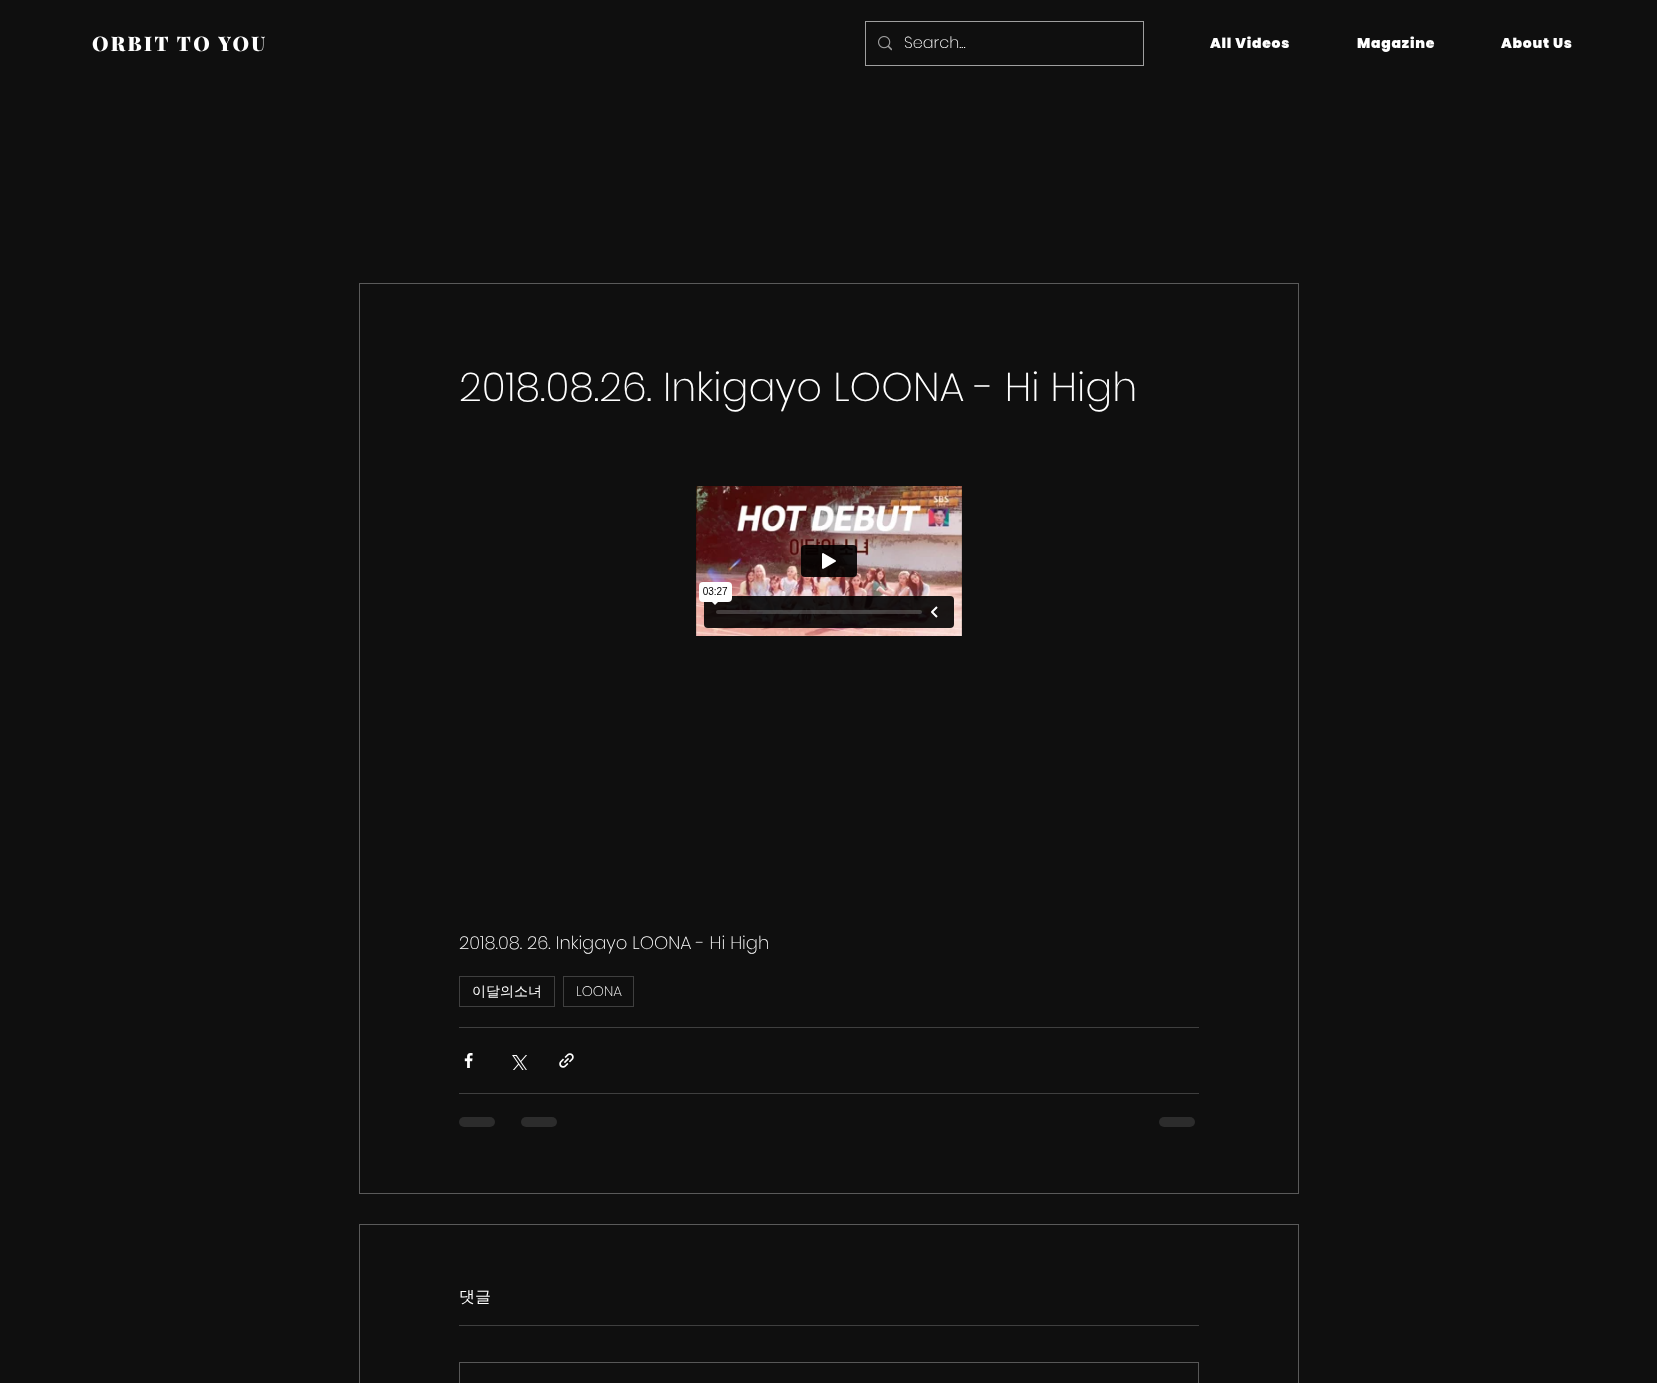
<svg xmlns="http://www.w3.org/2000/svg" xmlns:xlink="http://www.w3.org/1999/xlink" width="1657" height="1383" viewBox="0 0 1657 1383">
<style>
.cls-1{font:900 20px Playfair Display;letter-spacing:2.4px;fill:#ffffff}
.cls-2{font:200 16px Poppins;fill:#ffffff}
.cls-3{font:900 14px Poppins;letter-spacing:0.75px;fill:#ffffff}
.cls-4{font:200 40px Poppins;fill:#ffffff}
.cls-5{font:200 18px Poppins;fill:#ffffff}
.cls-6{font:500 14px WenQuanYi Zen Hei;fill:#ffffff}
.cls-7{font:200 14px Poppins;fill:#ffffff}
.cls-8{font:500 16px WenQuanYi Zen Hei;fill:#ffffff}
</style>
<rect width="100%" height="100%" fill="#0f0f0f"/>
<rect fill="none" stroke="#9f9f9f" x="865.5" y="21.5" width="278" height="44"/>
<image xlink:href="image0.png" x="878" y="36" width="14" height="15"/>
<rect fill="none" stroke="#5a5a5a" x="359.5" y="283.5" width="939" height="910"/>
<image xlink:href="image1.png" x="696" y="486" width="266" height="150"/>
<rect fill="none" stroke="#3f3f3f" x="459.5" y="976.5" width="95" height="30"/>
<rect fill="none" stroke="#3f3f3f" x="563.5" y="976.5" width="70" height="30"/>
<rect fill="#3f3f3f" x="459" y="1027" width="740" height="1"/>
<image xlink:href="image2.png" x="464" y="1053" width="9" height="15"/>
<image xlink:href="image3.png" x="512" y="1055" width="15" height="15"/>
<image xlink:href="image4.png" x="559" y="1053" width="15" height="15"/>
<rect fill="#3f3f3f" x="459" y="1093" width="740" height="1"/>
<rect fill="#2c2c2c" x="459" y="1117" width="36" height="10" rx="5"/>
<rect fill="#2c2c2c" x="521" y="1117" width="36" height="10" rx="5"/>
<rect fill="#2c2c2c" x="1159" y="1117" width="36" height="10" rx="5"/>
<rect fill="none" stroke="#5a5a5a" x="359.5" y="1224.5" width="939" height="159"/>
<rect fill="#3f3f3f" x="459" y="1325" width="740" height="1"/>
<rect fill="none" stroke="#575757" x="459.5" y="1362.5" width="739" height="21"/>
<text class="cls-1" x="92" y="51">ORBIT TO YOU</text>
<text class="cls-2" x="904" y="48">Search...</text>
<text class="cls-3" x="1210" y="48">All Videos</text>
<text class="cls-3" x="1357" y="48">Magazine</text>
<text class="cls-3" x="1501" y="48">About Us</text>
<text class="cls-4" x="459" y="401">2018.08.26. Inkigayo LOONA - Hi High</text>
<text class="cls-5" x="459" y="949">2018.08. 26. Inkigayo LOONA - Hi High</text>
<text class="cls-6" x="472" y="996">이달의소녀</text>
<text class="cls-7" x="576" y="996">LOONA</text>
<text class="cls-8" x="459" y="1302">댓글</text>
</svg>
